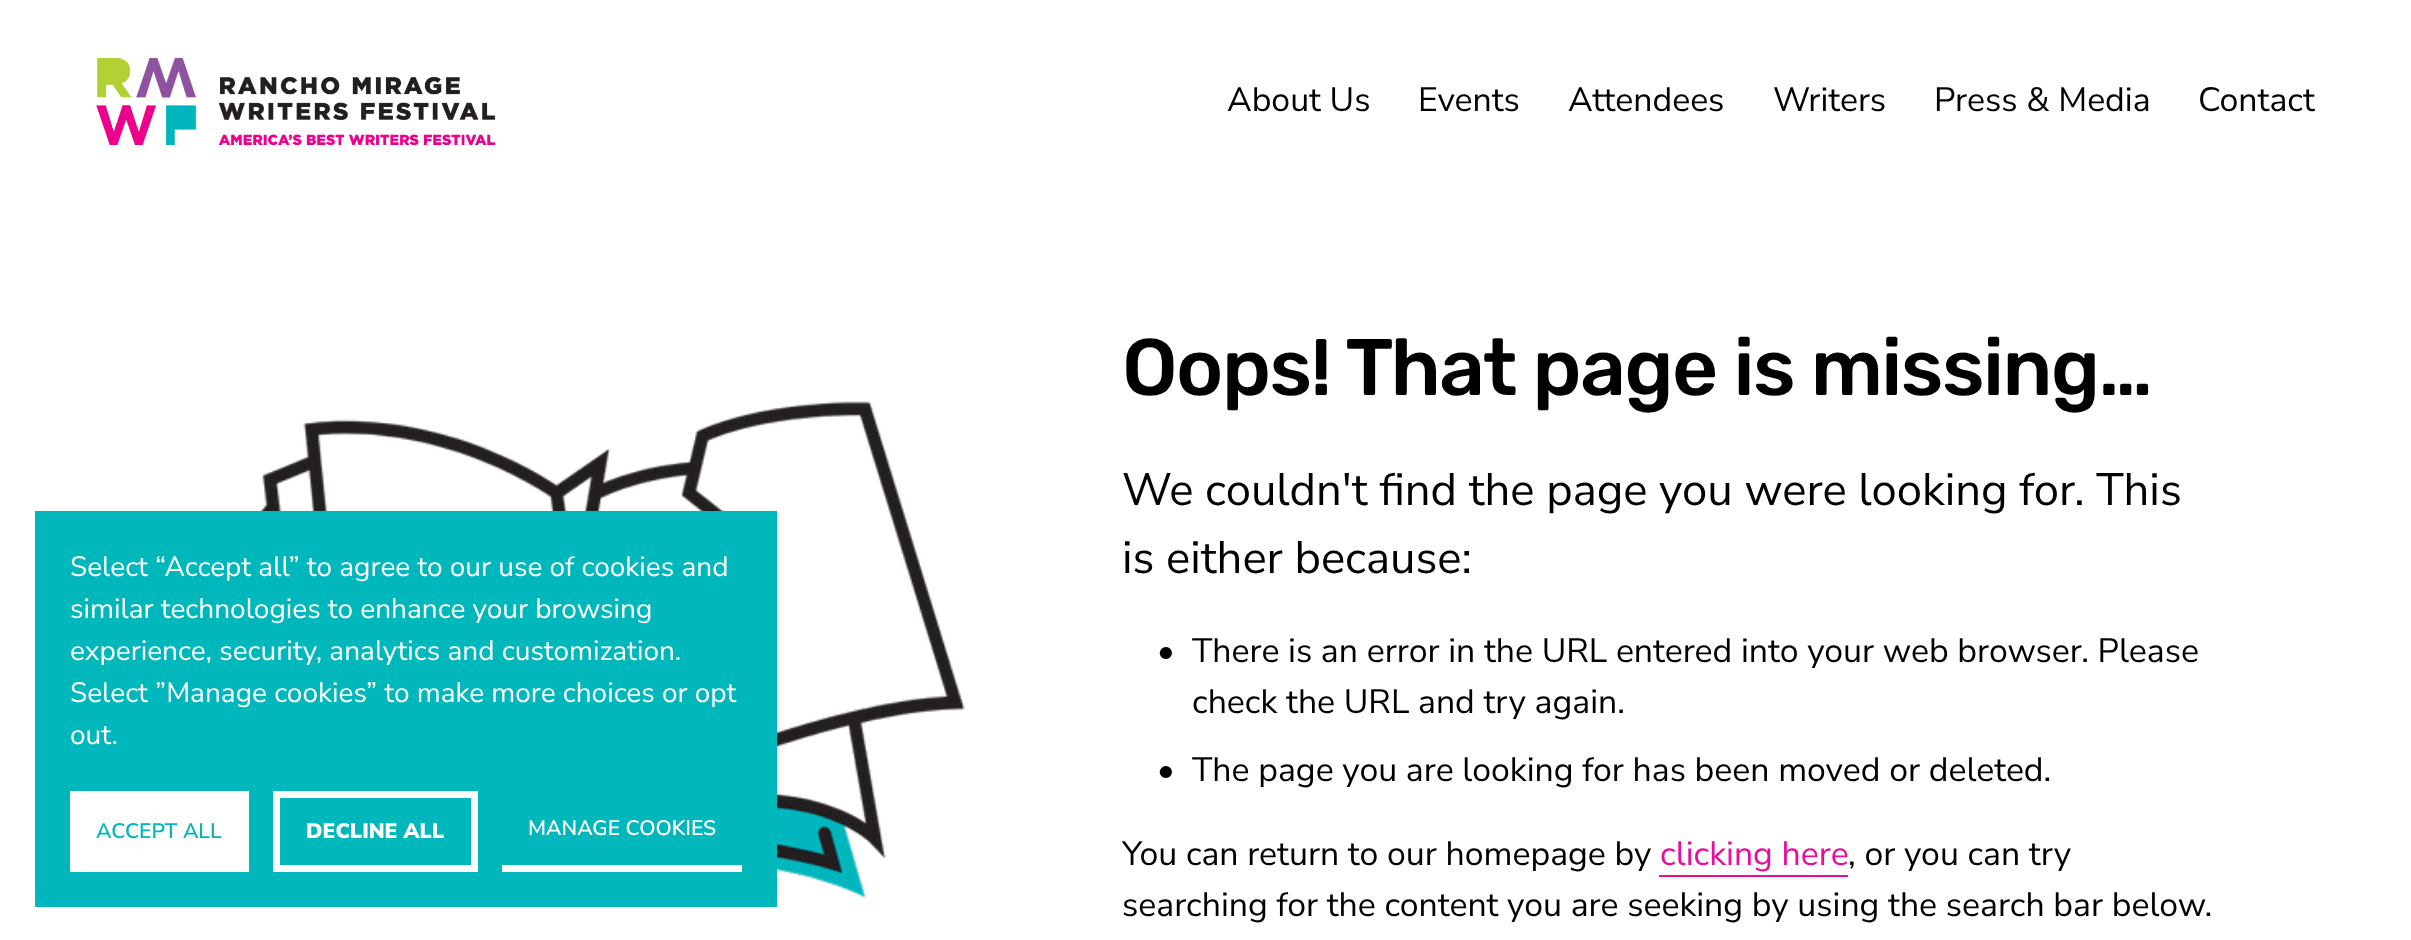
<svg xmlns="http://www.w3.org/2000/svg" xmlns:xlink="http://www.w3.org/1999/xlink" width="2411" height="940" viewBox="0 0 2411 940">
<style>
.cls-1{font:33.8px Nunito Sans;fill:#000000}
.cls-2{font:28px Nunito Sans;fill:#ffffff}
.cls-3{font:600 21px Nunito Sans;fill:#00b7bc}
.cls-4{font:900 21px Nunito Sans;fill:#ffffff}
.cls-5{font:600 21px Nunito Sans;fill:#ffffff}
.cls-6{font:500 80.1px Rubik;letter-spacing:-1.6px;fill:#000000}
.cls-7{font:45.4px Nunito Sans;fill:#000000}
.cls-8{font:33.8px Nunito Sans;fill:#ea0c9b}
</style>
<rect width="100%" height="100%" fill="#ffffff"/>
<image xlink:href="image0.png" x="96" y="58" width="400" height="87"/>
<image xlink:href="image1.png" x="260" y="401" width="705" height="498"/>
<rect fill="#00b7bc" x="35" y="511" width="742" height="396"/>
<rect fill="#ffffff" x="70" y="791" width="179" height="81"/>
<rect fill="none" stroke="#ffffff" stroke-width="7" x="276.5" y="794.5" width="198" height="74"/>
<rect fill="#ffffff" x="502" y="865" width="240" height="7"/>
<rect fill="#ea0c9b" x="1659" y="875" width="189" height="2"/>
<text class="cls-1" x="1227" y="111">About Us</text>
<text class="cls-1" x="1418" y="111">Events</text>
<text class="cls-1" x="1568" y="111">Attendees</text>
<text class="cls-1" x="1773" y="111">Writers</text>
<text class="cls-1" x="1934" y="111">Press &amp; Media</text>
<text class="cls-1" x="2198" y="111">Contact</text>
<text class="cls-2"><tspan x="70" y="576">Select “Accept all” to agree to our use of cookies and</tspan><tspan x="70" y="618">similar technologies to enhance your browsing</tspan><tspan x="70" y="660">experience, security, analytics and customization.</tspan><tspan x="70" y="702">Select ”Manage cookies” to make more choices or opt</tspan><tspan x="70" y="744">out.</tspan></text>
<text class="cls-3" x="96" y="838">ACCEPT ALL</text>
<text class="cls-4" x="306" y="838">DECLINE ALL</text>
<text class="cls-5" x="528" y="835">MANAGE COOKIES</text>
<text class="cls-6" x="1122" y="395">Oops! That page is missing…</text>
<text class="cls-7"><tspan x="1122" y="505">We couldn't find the page you were looking for. This</tspan><tspan x="1122" y="573">is either because:</tspan></text>
<text class="cls-1" x="1157" y="662">•</text>
<text class="cls-1"><tspan x="1192" y="662">There is an error in the URL entered into your web browser. Please</tspan><tspan x="1192" y="713">check the URL and try again.</tspan></text>
<text class="cls-1" x="1157" y="781">•</text>
<text class="cls-1" x="1192" y="781">The page you are looking for has been moved or deleted.</text>
<text class="cls-1" x="1122" y="865">You can return to our homepage by</text>
<text class="cls-8" x="1660" y="865">clicking here</text>
<text class="cls-1" x="1848" y="865">, or you can try</text>
<text class="cls-1" x="1122" y="916">searching for the content you are seeking by using the search bar below.</text>
</svg>
